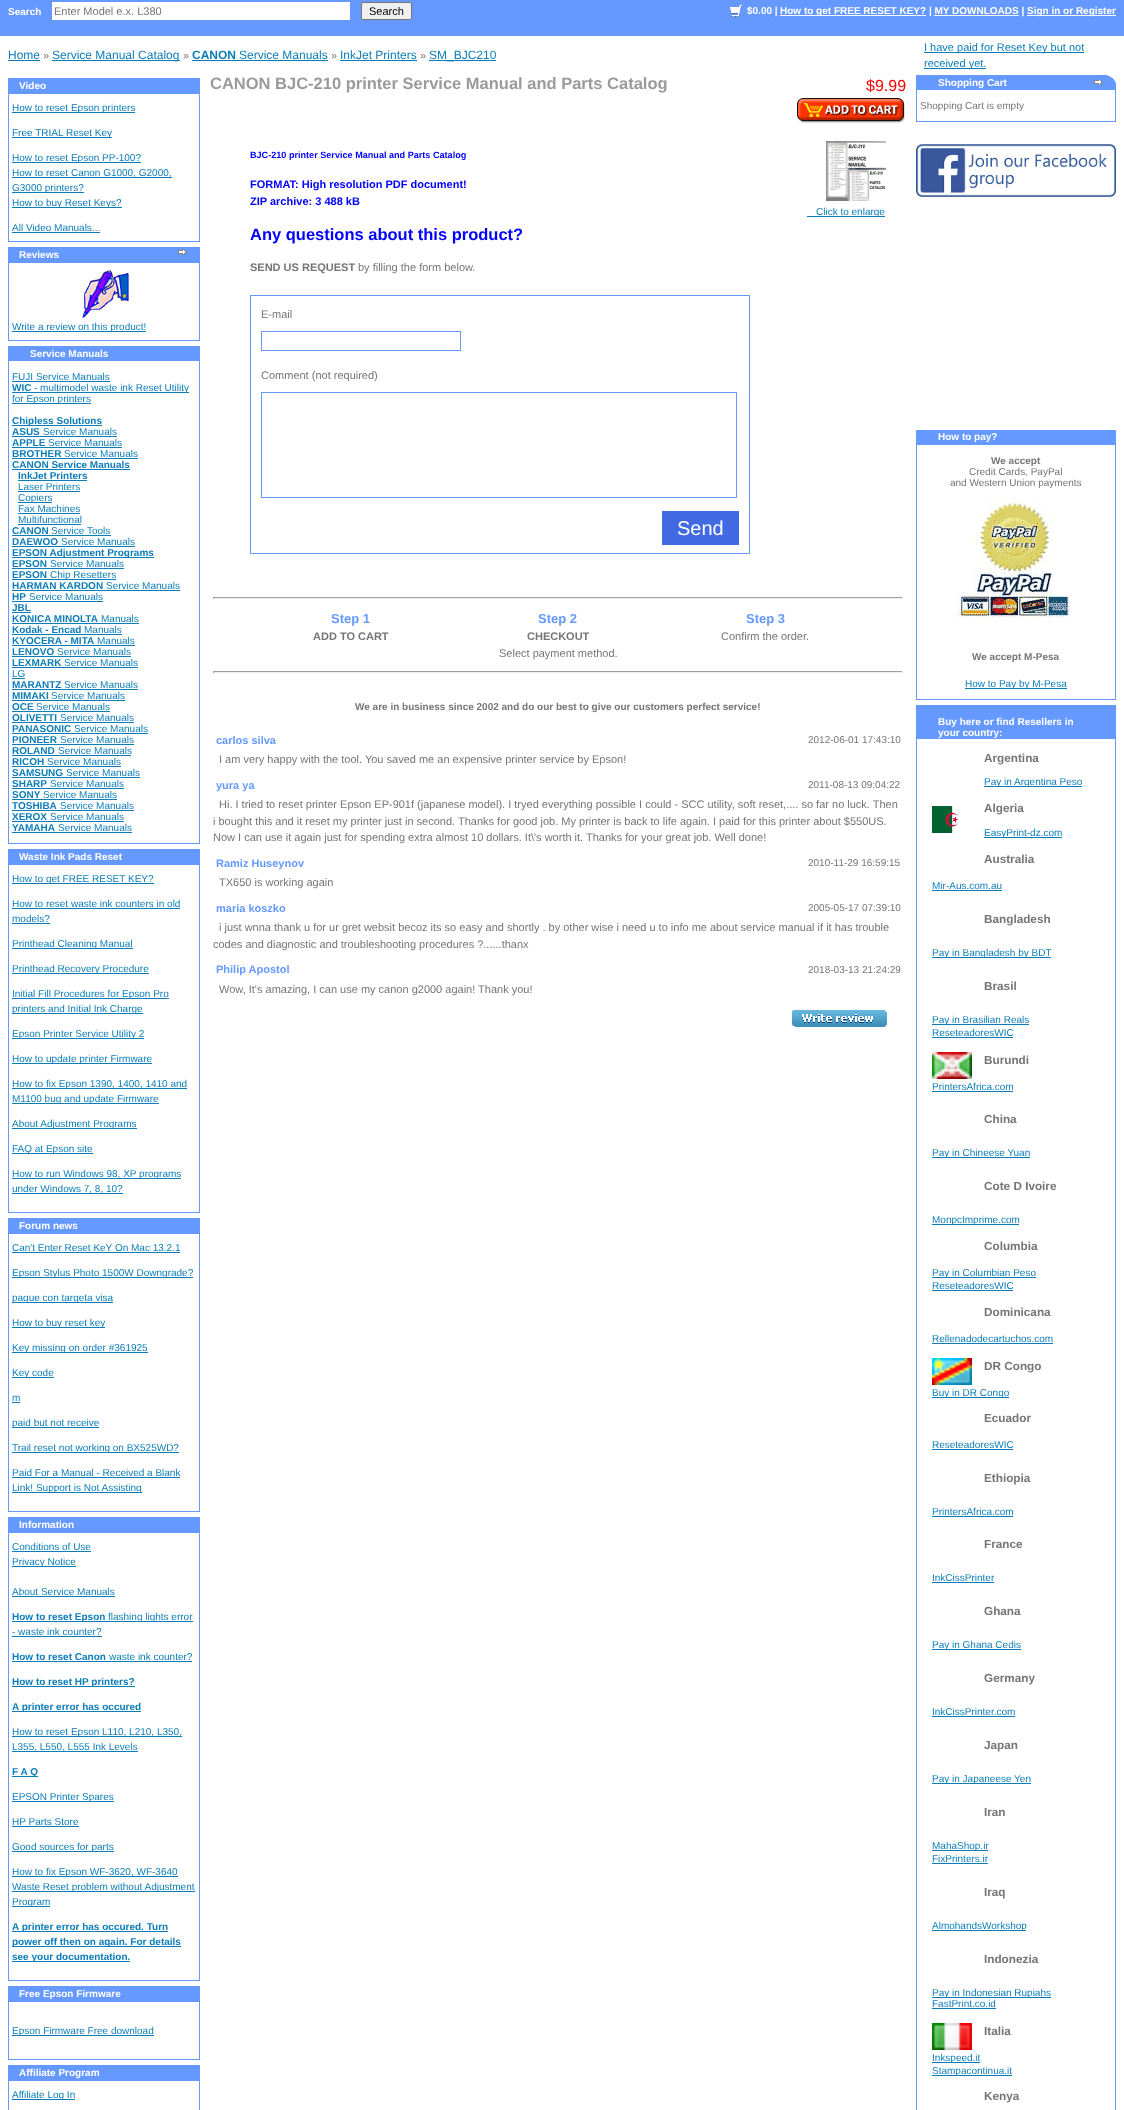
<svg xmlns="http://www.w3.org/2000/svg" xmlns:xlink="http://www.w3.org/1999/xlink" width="1124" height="2110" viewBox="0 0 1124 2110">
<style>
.cls-1{font:bold 10px Liberation Sans;fill:#ffffff}
.cls-2{font:11px Liberation Sans;fill:#757575}
.cls-3{font:11px Liberation Sans;fill:#000000}
.cls-4{font:12px Liberation Sans;fill:#0c7db8}
.cls-5{font:bold 12px Liberation Sans;fill:#0c7db8}
.cls-6{font:11px Liberation Sans;fill:#0c7db8}
.cls-7{font:10px Liberation Sans;fill:#0c7db8}
.cls-8{font:bold 10px Liberation Sans;fill:#0c7db8}
.cls-9{font:bold 16.5px Liberation Sans;fill:#9a9a9a}
.cls-10{font:16px Liberation Sans;fill:#ff0000}
.cls-11{font:bold 9.1px Liberation Sans;fill:#0000ff}
.cls-12{font:bold 11px Liberation Sans;fill:#0000ff}
.cls-13{font:bold 16.5px Liberation Sans;fill:#0000ff}
.cls-14{font:bold 11px Liberation Sans;fill:#757575}
.cls-15{font:20px Liberation Sans;fill:#ffffff}
.cls-16{font:bold 13px Liberation Sans;fill:#6699ff}
.cls-17{font:bold 10px Liberation Sans;fill:#757575}
.cls-18{font:bold 11px Liberation Sans;fill:#6699ff}
.cls-19{font:10px Liberation Sans;fill:#757575}
.cls-20{font:bold 11.75px Liberation Sans;fill:#757575}
</style>
<rect width="100%" height="100%" fill="#ffffff"/>
<rect fill="#6699ff" x="0" y="0" width="1124" height="36"/>
<rect fill="#ffffff" x="52" y="2" width="298" height="18"/>
<rect fill="#efefef" stroke="#767676" x="361.5" y="2.5" width="50" height="17" rx="1.5"/>
<image xlink:href="image0.png" x="730" y="5" width="12" height="13"/>
<rect fill="#ffffff" x="780" y="15" width="146" height="1"/>
<rect fill="#ffffff" x="1027" y="15" width="89" height="1"/>
<rect fill="#ffffff" x="934" y="15" width="85" height="1"/>
<rect fill="#0c7db8" x="8" y="60" width="32" height="1"/>
<rect fill="#0c7db8" x="52" y="60" width="128" height="1"/>
<rect fill="#0c7db8" x="192" y="60" width="136" height="1"/>
<rect fill="#0c7db8" x="340" y="60" width="77" height="1"/>
<rect fill="#0c7db8" x="429" y="60" width="67" height="1"/>
<rect fill="#0c7db8" x="924" y="52" width="160" height="1"/>
<rect fill="#0c7db8" x="924" y="68" width="62" height="1"/>
<rect fill="#6699ff" x="8" y="78" width="192" height="15"/>
<rect fill="none" stroke="#6699ff" x="8.5" y="93.5" width="191" height="148"/>
<rect fill="#0c7db8" x="12" y="112" width="123" height="1"/>
<rect fill="#0c7db8" x="12" y="137" width="100" height="1"/>
<rect fill="#0c7db8" x="12" y="162" width="129" height="1"/>
<rect fill="#0c7db8" x="12" y="177" width="160" height="1"/>
<rect fill="#0c7db8" x="12" y="192" width="72" height="1"/>
<rect fill="#0c7db8" x="12" y="207" width="110" height="1"/>
<rect fill="#0c7db8" x="12" y="232" width="88" height="1"/>
<rect fill="#6699ff" x="8" y="247" width="192" height="15"/>
<image xlink:href="image1.png" x="178" y="249" width="9" height="6"/>
<rect fill="none" stroke="#6699ff" x="8.5" y="262.5" width="191" height="78"/>
<image xlink:href="image2.png" x="82" y="270" width="47" height="48"/>
<rect fill="#0c7db8" x="12" y="331" width="134" height="1"/>
<rect fill="#6699ff" x="8" y="346" width="192" height="498"/>
<rect fill="#ffffff" x="9" y="361" width="190" height="482"/>
<rect fill="#0c7db8" x="12" y="381" width="98" height="1"/>
<rect fill="#0c7db8" x="12" y="392" width="177" height="1"/>
<rect fill="#0c7db8" x="12" y="403" width="79" height="1"/>
<rect fill="#0c7db8" x="12" y="425" width="90" height="1"/>
<rect fill="#0c7db8" x="12" y="436" width="105" height="1"/>
<rect fill="#0c7db8" x="12" y="447" width="110" height="1"/>
<rect fill="#0c7db8" x="12" y="458" width="126" height="1"/>
<rect fill="#0c7db8" x="12" y="469" width="118" height="1"/>
<rect fill="#0c7db8" x="18" y="480" width="69" height="1"/>
<rect fill="#0c7db8" x="18" y="491" width="62" height="1"/>
<rect fill="#0c7db8" x="18" y="502" width="34" height="1"/>
<rect fill="#0c7db8" x="18" y="513" width="62" height="1"/>
<rect fill="#0c7db8" x="18" y="524" width="63" height="1"/>
<rect fill="#0c7db8" x="12" y="535" width="99" height="1"/>
<rect fill="#0c7db8" x="12" y="546" width="123" height="1"/>
<rect fill="#0c7db8" x="12" y="557" width="142" height="1"/>
<rect fill="#0c7db8" x="12" y="568" width="112" height="1"/>
<rect fill="#0c7db8" x="12" y="579" width="104" height="1"/>
<rect fill="#0c7db8" x="12" y="590" width="168" height="1"/>
<rect fill="#0c7db8" x="12" y="601" width="91" height="1"/>
<rect fill="#0c7db8" x="12" y="612" width="19" height="1"/>
<rect fill="#0c7db8" x="12" y="623" width="127" height="1"/>
<rect fill="#0c7db8" x="12" y="634" width="110" height="1"/>
<rect fill="#0c7db8" x="12" y="645" width="123" height="1"/>
<rect fill="#0c7db8" x="12" y="656" width="119" height="1"/>
<rect fill="#0c7db8" x="12" y="667" width="126" height="1"/>
<rect fill="#0c7db8" x="12" y="678" width="13" height="1"/>
<rect fill="#0c7db8" x="12" y="689" width="126" height="1"/>
<rect fill="#0c7db8" x="12" y="700" width="113" height="1"/>
<rect fill="#0c7db8" x="12" y="711" width="98" height="1"/>
<rect fill="#0c7db8" x="12" y="722" width="122" height="1"/>
<rect fill="#0c7db8" x="12" y="733" width="136" height="1"/>
<rect fill="#0c7db8" x="12" y="744" width="122" height="1"/>
<rect fill="#0c7db8" x="12" y="755" width="119" height="1"/>
<rect fill="#0c7db8" x="12" y="766" width="109" height="1"/>
<rect fill="#0c7db8" x="12" y="777" width="128" height="1"/>
<rect fill="#0c7db8" x="12" y="788" width="112" height="1"/>
<rect fill="#0c7db8" x="12" y="799" width="105" height="1"/>
<rect fill="#0c7db8" x="12" y="810" width="122" height="1"/>
<rect fill="#0c7db8" x="12" y="821" width="112" height="1"/>
<rect fill="#0c7db8" x="12" y="832" width="120" height="1"/>
<rect fill="#6699ff" x="8" y="849" width="192" height="15"/>
<rect fill="none" stroke="#6699ff" x="8.5" y="864.5" width="191" height="348"/>
<rect fill="#0c7db8" x="12" y="883" width="142" height="1"/>
<rect fill="#0c7db8" x="12" y="908" width="168" height="1"/>
<rect fill="#0c7db8" x="12" y="923" width="38" height="1"/>
<rect fill="#0c7db8" x="12" y="948" width="121" height="1"/>
<rect fill="#0c7db8" x="12" y="973" width="137" height="1"/>
<rect fill="#0c7db8" x="12" y="998" width="157" height="1"/>
<rect fill="#0c7db8" x="12" y="1013" width="131" height="1"/>
<rect fill="#0c7db8" x="12" y="1038" width="132" height="1"/>
<rect fill="#0c7db8" x="12" y="1063" width="140" height="1"/>
<rect fill="#0c7db8" x="12" y="1088" width="175" height="1"/>
<rect fill="#0c7db8" x="12" y="1103" width="147" height="1"/>
<rect fill="#0c7db8" x="12" y="1128" width="125" height="1"/>
<rect fill="#0c7db8" x="12" y="1153" width="81" height="1"/>
<rect fill="#0c7db8" x="12" y="1178" width="169" height="1"/>
<rect fill="#0c7db8" x="12" y="1193" width="111" height="1"/>
<rect fill="#6699ff" x="8" y="1218" width="192" height="15"/>
<rect fill="none" stroke="#6699ff" x="8.5" y="1233.5" width="191" height="278"/>
<rect fill="#0c7db8" x="12" y="1252" width="168" height="1"/>
<rect fill="#0c7db8" x="12" y="1277" width="181" height="1"/>
<rect fill="#0c7db8" x="12" y="1302" width="101" height="1"/>
<rect fill="#0c7db8" x="12" y="1327" width="93" height="1"/>
<rect fill="#0c7db8" x="12" y="1352" width="136" height="1"/>
<rect fill="#0c7db8" x="12" y="1377" width="42" height="1"/>
<rect fill="#0c7db8" x="12" y="1402" width="8" height="1"/>
<rect fill="#0c7db8" x="12" y="1427" width="87" height="1"/>
<rect fill="#0c7db8" x="12" y="1452" width="167" height="1"/>
<rect fill="#0c7db8" x="12" y="1477" width="168" height="1"/>
<rect fill="#0c7db8" x="12" y="1492" width="130" height="1"/>
<rect fill="#6699ff" x="8" y="1517" width="192" height="15"/>
<rect fill="none" stroke="#6699ff" x="8.5" y="1532.5" width="191" height="448"/>
<rect fill="#0c7db8" x="12" y="1551" width="79" height="1"/>
<rect fill="#0c7db8" x="12" y="1566" width="64" height="1"/>
<rect fill="#0c7db8" x="12" y="1596" width="103" height="1"/>
<rect fill="#0c7db8" x="12" y="1621" width="181" height="1"/>
<rect fill="#0c7db8" x="12" y="1636" width="90" height="1"/>
<rect fill="#0c7db8" x="12" y="1661" width="180" height="1"/>
<rect fill="#0c7db8" x="12" y="1686" width="123" height="1"/>
<rect fill="#0c7db8" x="12" y="1711" width="129" height="1"/>
<rect fill="#0c7db8" x="12" y="1736" width="170" height="1"/>
<rect fill="#0c7db8" x="12" y="1751" width="126" height="1"/>
<rect fill="#0c7db8" x="12" y="1776" width="26" height="1"/>
<rect fill="#0c7db8" x="12" y="1801" width="102" height="1"/>
<rect fill="#0c7db8" x="12" y="1826" width="67" height="1"/>
<rect fill="#0c7db8" x="12" y="1851" width="102" height="1"/>
<rect fill="#0c7db8" x="12" y="1876" width="166" height="1"/>
<rect fill="#0c7db8" x="12" y="1891" width="183" height="1"/>
<rect fill="#0c7db8" x="12" y="1906" width="38" height="1"/>
<rect fill="#0c7db8" x="12" y="1931" width="156" height="1"/>
<rect fill="#0c7db8" x="12" y="1946" width="169" height="1"/>
<rect fill="#0c7db8" x="12" y="1961" width="118" height="1"/>
<rect fill="#6699ff" x="8" y="1986" width="192" height="15"/>
<rect fill="none" stroke="#6699ff" x="8.5" y="2001.5" width="191" height="58"/>
<rect fill="#0c7db8" x="12" y="2035" width="142" height="1"/>
<rect fill="#6699ff" x="8" y="2065" width="192" height="15"/>
<rect fill="none" stroke="#6699ff" x="8.5" y="2080.5" width="191" height="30"/>
<rect fill="#0c7db8" x="12" y="2099" width="63" height="1"/>
<image xlink:href="image3.png" x="797" y="98" width="108" height="25"/>
<image xlink:href="image4.png" x="826" y="141" width="60" height="60"/>
<rect fill="#0c7db8" x="807" y="216" width="78" height="1"/>
<rect fill="none" stroke="#6699ff" x="250.5" y="295.5" width="499" height="258"/>
<rect fill="none" stroke="#6699ff" x="261.5" y="331.5" width="199" height="19"/>
<rect fill="none" stroke="#6699ff" x="261.5" y="392.5" width="475" height="105"/>
<rect fill="#4169e1" x="662" y="511" width="77" height="34"/>
<rect fill="#9f9f9f" x="213" y="597" width="690" height="1"/>
<rect fill="#eeeeee" x="902" y="597" width="1" height="2"/>
<rect fill="#eeeeee" x="213" y="598" width="690" height="1"/>
<rect fill="#9f9f9f" x="213" y="597" width="1" height="2"/>
<rect fill="#9f9f9f" x="213" y="671" width="690" height="1"/>
<rect fill="#eeeeee" x="902" y="671" width="1" height="2"/>
<rect fill="#eeeeee" x="213" y="672" width="690" height="1"/>
<rect fill="#9f9f9f" x="213" y="671" width="1" height="2"/>
<image xlink:href="image5.png" x="792" y="1010" width="95" height="17"/>
<rect fill="#6699ff" x="916" y="75" width="200" height="47"/>
<image xlink:href="image1.png" x="1094" y="79" width="9" height="6"/>
<image xlink:href="image6.png" x="1107" y="75" width="9" height="8"/>
<rect fill="#ffffff" x="917" y="90" width="198" height="31"/>
<image xlink:href="image7.png" x="916" y="144" width="200" height="53"/>
<rect fill="#6699ff" x="916" y="430" width="200" height="270"/>
<rect fill="#ffffff" x="917" y="445" width="198" height="254"/>
<image xlink:href="image8.png" x="957" y="499" width="114" height="119"/>
<rect fill="#0c7db8" x="965" y="688" width="102" height="1"/>
<rect fill="#6699ff" x="916" y="705" width="200" height="1405"/>
<rect fill="#ffffff" x="917" y="739" width="198" height="1371"/>
<rect fill="#0c7db8" x="984" y="786" width="98" height="1"/>
<image xlink:href="image9.png" x="932" y="806" width="27" height="27"/>
<rect fill="#0c7db8" x="984" y="837" width="78" height="1"/>
<rect fill="#0c7db8" x="932" y="890" width="70" height="1"/>
<rect fill="#0c7db8" x="932" y="957" width="119" height="1"/>
<rect fill="#0c7db8" x="932" y="1024" width="97" height="1"/>
<rect fill="#0c7db8" x="932" y="1037" width="81" height="1"/>
<image xlink:href="image10.png" x="932" y="1052" width="40" height="27"/>
<rect fill="#0c7db8" x="932" y="1091" width="81" height="1"/>
<rect fill="#0c7db8" x="932" y="1157" width="98" height="1"/>
<rect fill="#0c7db8" x="932" y="1224" width="87" height="1"/>
<rect fill="#0c7db8" x="932" y="1277" width="104" height="1"/>
<rect fill="#0c7db8" x="932" y="1290" width="81" height="1"/>
<rect fill="#0c7db8" x="932" y="1343" width="121" height="1"/>
<image xlink:href="image11.png" x="932" y="1358" width="40" height="27"/>
<rect fill="#0c7db8" x="932" y="1397" width="77" height="1"/>
<rect fill="#0c7db8" x="932" y="1449" width="81" height="1"/>
<rect fill="#0c7db8" x="932" y="1516" width="81" height="1"/>
<rect fill="#0c7db8" x="932" y="1582" width="62" height="1"/>
<rect fill="#0c7db8" x="932" y="1649" width="89" height="1"/>
<rect fill="#0c7db8" x="932" y="1716" width="83" height="1"/>
<rect fill="#0c7db8" x="932" y="1783" width="99" height="1"/>
<rect fill="#0c7db8" x="932" y="1850" width="56" height="1"/>
<rect fill="#0c7db8" x="932" y="1863" width="56" height="1"/>
<rect fill="#0c7db8" x="932" y="1930" width="94" height="1"/>
<rect fill="#0c7db8" x="932" y="1997" width="119" height="1"/>
<rect fill="#0c7db8" x="932" y="2008" width="64" height="1"/>
<image xlink:href="image12.png" x="932" y="2023" width="40" height="27"/>
<rect fill="#0c7db8" x="932" y="2062" width="48" height="1"/>
<rect fill="#0c7db8" x="932" y="2075" width="80" height="1"/>
<text class="cls-1" x="8" y="15">Search</text>
<text class="cls-2" x="54" y="15">Enter Model e.x. L380</text>
<text class="cls-3" x="369" y="15">Search</text>
<text class="cls-1" x="747" y="14">$0.00 |</text>
<text class="cls-1" x="780" y="14">How to get FREE RESET KEY? | MY DOWNLOADS |</text>
<text class="cls-1" x="1027" y="14">Sign in or Register</text>
<text class="cls-4" x="8" y="59">Home</text>
<text class="cls-2" x="43" y="59">»</text>
<text class="cls-4" x="52" y="59">Service Manual Catalog</text>
<text class="cls-2" x="183" y="59">»</text>
<text class="cls-5" x="192" y="59">CANON</text>
<text class="cls-4" x="239" y="59">Service Manuals</text>
<text class="cls-2" x="331" y="59">»</text>
<text class="cls-4" x="340" y="59">InkJet Printers</text>
<text class="cls-2" x="420" y="59">»</text>
<text class="cls-4" x="429" y="59">SM_BJC210</text>
<text class="cls-6"><tspan x="924" y="51">I have paid for Reset Key but not</tspan><tspan x="924" y="67">received yet.</tspan></text>
<text class="cls-1" x="19" y="89">Video</text>
<text class="cls-7" x="12" y="111">How to reset Epson printers</text>
<text class="cls-7" x="12" y="136">Free TRIAL Reset Key</text>
<text class="cls-7"><tspan x="12" y="161">How to reset Epson PP-100?</tspan><tspan x="12" y="176">How to reset Canon G1000, G2000,</tspan><tspan x="12" y="191">G3000 printers?</tspan><tspan x="12" y="206">How to buy Reset Keys?</tspan></text>
<text class="cls-7" x="12" y="231">All Video Manuals...</text>
<text class="cls-1" x="19" y="258">Reviews</text>
<text class="cls-7" x="12" y="330">Write a review on this product!</text>
<text class="cls-1" x="30" y="357">Service Manuals</text>
<text class="cls-7" x="12" y="380">FUJI Service Manuals</text>
<text class="cls-8" x="12" y="391">WIC</text>
<text class="cls-7" x="34" y="391">- multimodel waste ink Reset Utility</text>
<text class="cls-7" x="12" y="402">for Epson printers</text>
<text class="cls-8"><tspan x="12" y="424">Chipless Solutions</tspan><tspan x="12" y="435">ASUS</tspan></text>
<text class="cls-7" x="43" y="435">Service Manuals</text>
<text class="cls-8" x="12" y="446">APPLE</text>
<text class="cls-7" x="48" y="446">Service Manuals</text>
<text class="cls-8" x="12" y="457">BROTHER</text>
<text class="cls-7" x="64" y="457">Service Manuals</text>
<text class="cls-8" x="12" y="468">CANON Service Manuals</text>
<text class="cls-8" x="18" y="479">InkJet Printers</text>
<text class="cls-7"><tspan x="18" y="490">Laser Printers</tspan><tspan x="18" y="501">Copiers</tspan><tspan x="18" y="512">Fax Machines</tspan><tspan x="18" y="523">Multifunctional</tspan></text>
<text class="cls-8" x="12" y="534">CANON</text>
<text class="cls-7" x="51" y="534">Service Tools</text>
<text class="cls-8" x="12" y="545">DAEWOO</text>
<text class="cls-7" x="61" y="545">Service Manuals</text>
<text class="cls-8"><tspan x="12" y="556">EPSON Adjustment Programs</tspan><tspan x="12" y="567">EPSON</tspan></text>
<text class="cls-7" x="50" y="567">Service Manuals</text>
<text class="cls-8" x="12" y="578">EPSON</text>
<text class="cls-7" x="50" y="578">Chip Resetters</text>
<text class="cls-8" x="12" y="589">HARMAN KARDON</text>
<text class="cls-7" x="106" y="589">Service Manuals</text>
<text class="cls-8" x="12" y="600">HP</text>
<text class="cls-7" x="29" y="600">Service Manuals</text>
<text class="cls-8"><tspan x="12" y="611">JBL</tspan><tspan x="12" y="622">KONICA MINOLTA</tspan></text>
<text class="cls-7" x="101" y="622">Manuals</text>
<text class="cls-8" x="12" y="633">Kodak - Encad</text>
<text class="cls-7" x="84" y="633">Manuals</text>
<text class="cls-8" x="12" y="644">KYOCERA - MITA</text>
<text class="cls-7" x="97" y="644">Manuals</text>
<text class="cls-8" x="12" y="655">LENOVO</text>
<text class="cls-7" x="57" y="655">Service Manuals</text>
<text class="cls-8" x="12" y="666">LEXMARK</text>
<text class="cls-7" x="64" y="666">Service Manuals</text>
<text class="cls-7" x="12" y="677">LG</text>
<text class="cls-8" x="12" y="688">MARANTZ</text>
<text class="cls-7" x="64" y="688">Service Manuals</text>
<text class="cls-8" x="12" y="699">MIMAKI</text>
<text class="cls-7" x="51" y="699">Service Manuals</text>
<text class="cls-8" x="12" y="710">OCE</text>
<text class="cls-7" x="36" y="710">Service Manuals</text>
<text class="cls-8" x="12" y="721">OLIVETTI</text>
<text class="cls-7" x="60" y="721">Service Manuals</text>
<text class="cls-8" x="12" y="732">PANASONIC</text>
<text class="cls-7" x="74" y="732">Service Manuals</text>
<text class="cls-8" x="12" y="743">PIONEER</text>
<text class="cls-7" x="60" y="743">Service Manuals</text>
<text class="cls-8" x="12" y="754">ROLAND</text>
<text class="cls-7" x="58" y="754">Service Manuals</text>
<text class="cls-8" x="12" y="765">RICOH</text>
<text class="cls-7" x="47" y="765">Service Manuals</text>
<text class="cls-8" x="12" y="776">SAMSUNG</text>
<text class="cls-7" x="66" y="776">Service Manuals</text>
<text class="cls-8" x="12" y="787">SHARP</text>
<text class="cls-7" x="50" y="787">Service Manuals</text>
<text class="cls-8" x="12" y="798">SONY</text>
<text class="cls-7" x="43" y="798">Service Manuals</text>
<text class="cls-8" x="12" y="809">TOSHIBA</text>
<text class="cls-7" x="60" y="809">Service Manuals</text>
<text class="cls-8" x="12" y="820">XEROX</text>
<text class="cls-7" x="50" y="820">Service Manuals</text>
<text class="cls-8" x="12" y="831">YAMAHA</text>
<text class="cls-7" x="58" y="831">Service Manuals</text>
<text class="cls-1" x="19" y="860">Waste Ink Pads Reset</text>
<text class="cls-7" x="12" y="882">How to get FREE RESET KEY?</text>
<text class="cls-7"><tspan x="12" y="907">How to reset waste ink counters in old</tspan><tspan x="12" y="922">models?</tspan></text>
<text class="cls-7" x="12" y="947">Printhead Cleaning Manual</text>
<text class="cls-7" x="12" y="972">Printhead Recovery Procedure</text>
<text class="cls-7"><tspan x="12" y="997">Initial Fill Procedures for Epson Pro</tspan><tspan x="12" y="1012">printers and Initial Ink Charge</tspan></text>
<text class="cls-7" x="12" y="1037">Epson Printer Service Utility 2</text>
<text class="cls-7" x="12" y="1062">How to update printer Firmware</text>
<text class="cls-7"><tspan x="12" y="1087">How to fix Epson 1390, 1400, 1410 and</tspan><tspan x="12" y="1102">M1100 bug and update Firmware</tspan></text>
<text class="cls-7" x="12" y="1127">About Adjustment Programs</text>
<text class="cls-7" x="12" y="1152">FAQ at Epson site</text>
<text class="cls-7"><tspan x="12" y="1177">How to run Windows 98, XP programs</tspan><tspan x="12" y="1192">under Windows 7, 8, 10?</tspan></text>
<text class="cls-1" x="19" y="1229">Forum news</text>
<text class="cls-7" x="12" y="1251">Can't Enter Reset KeY On Mac 13.2.1</text>
<text class="cls-7" x="12" y="1276">Epson Stylus Photo 1500W Downgrade?</text>
<text class="cls-7" x="12" y="1301">pague con targeta visa</text>
<text class="cls-7" x="12" y="1326">How to buy reset key</text>
<text class="cls-7" x="12" y="1351">Key missing on order #361925</text>
<text class="cls-7" x="12" y="1376">Key code</text>
<text class="cls-7" x="12" y="1401">m</text>
<text class="cls-7" x="12" y="1426">paid but not receive</text>
<text class="cls-7" x="12" y="1451">Trail reset not working on BX525WD?</text>
<text class="cls-7"><tspan x="12" y="1476">Paid For a Manual - Received a Blank</tspan><tspan x="12" y="1491">Link! Support is Not Assisting</tspan></text>
<text class="cls-1" x="19" y="1528">Information</text>
<text class="cls-7"><tspan x="12" y="1550">Conditions of Use</tspan><tspan x="12" y="1565">Privacy Notice</tspan></text>
<text class="cls-7" x="12" y="1595">About Service Manuals</text>
<text class="cls-8" x="12" y="1620">How to reset Epson</text>
<text class="cls-7" x="108" y="1620">flashing lights error</text>
<text class="cls-7" x="12" y="1635">- waste ink counter?</text>
<text class="cls-8" x="12" y="1660">How to reset Canon</text>
<text class="cls-7" x="109" y="1660">waste ink counter?</text>
<text class="cls-8" x="12" y="1685">How to reset HP printers?</text>
<text class="cls-8" x="12" y="1710">A printer error has occured</text>
<text class="cls-7"><tspan x="12" y="1735">How to reset Epson L110, L210, L350,</tspan><tspan x="12" y="1750">L355, L550, L555 Ink Levels</tspan></text>
<text class="cls-8" x="12" y="1775">F A Q</text>
<text class="cls-7" x="12" y="1800">EPSON Printer Spares</text>
<text class="cls-7" x="12" y="1825">HP Parts Store</text>
<text class="cls-7" x="12" y="1850">Good sources for parts</text>
<text class="cls-7"><tspan x="12" y="1875">How to fix Epson WF-3620, WF-3640</tspan><tspan x="12" y="1890">Waste Reset problem without Adjustment</tspan><tspan x="12" y="1905">Program</tspan></text>
<text class="cls-8"><tspan x="12" y="1930">A printer error has occured. Turn</tspan><tspan x="12" y="1945">power off then on again. For details</tspan><tspan x="12" y="1960">see your documentation.</tspan></text>
<text class="cls-1" x="19" y="1997">Free Epson Firmware</text>
<text class="cls-7" x="12" y="2034">Epson Firmware Free download</text>
<text class="cls-1" x="19" y="2076">Affiliate Program</text>
<text class="cls-7" x="12" y="2098">Affiliate Log In</text>
<text class="cls-9" x="210" y="89">CANON BJC-210 printer Service Manual and Parts Catalog</text>
<text class="cls-10" x="866" y="91">$9.99</text>
<text class="cls-11" x="250" y="158">BJC-210 printer Service Manual and Parts Catalog</text>
<text class="cls-12"><tspan x="250" y="188">FORMAT: High resolution PDF document!</tspan><tspan x="250" y="205">ZIP archive: 3 488 kB</tspan></text>
<text class="cls-7" x="816" y="215">Click to enlarge</text>
<text class="cls-13" x="250" y="240">Any questions about this product?</text>
<text class="cls-14" x="250" y="271">SEND US REQUEST</text>
<text class="cls-2" x="358" y="271">by filling the form below.</text>
<text class="cls-2" x="261" y="318">E-mail</text>
<text class="cls-2" x="261" y="379">Comment (not required)</text>
<text class="cls-15" x="677" y="535">Send</text>
<text class="cls-16" x="331" y="623">Step 1</text>
<text class="cls-14" x="313" y="640">ADD TO CART</text>
<text class="cls-16" x="538" y="623">Step 2</text>
<text class="cls-14" x="527" y="640">CHECKOUT</text>
<text class="cls-2" x="499" y="657">Select payment method.</text>
<text class="cls-16" x="746" y="623">Step 3</text>
<text class="cls-2" x="721" y="640">Confirm the order.</text>
<text class="cls-17" x="355" y="710">We are in business since 2002 and do our best to give our customers perfect service!</text>
<text class="cls-18" x="216" y="744">carlos silva</text>
<text class="cls-19" x="808" y="743">2012-06-01 17:43:10</text>
<text class="cls-2" x="219" y="763">I am very happy with the tool. You saved me an expensive printer service by Epson!</text>
<text class="cls-18" x="216" y="789">yura ya</text>
<text class="cls-19" x="808" y="788">2011-08-13 09:04:22</text>
<text class="cls-2" x="219" y="808">Hi. I tried to reset printer Epson EP-901f (japanese model). I tryed everything possible I could - SCC utility, soft reset,.... so far no luck. Then</text>
<text class="cls-2"><tspan x="213" y="825">i bought this and it reset my printer just in second. Thanks for good job. My printer is back to life again. I paid for this printer about $550US.</tspan><tspan x="213" y="841">Now I can use it again just for spending extra almost 10 dollars. It\'s worth it. Thanks for your great job. Well done!</tspan></text>
<text class="cls-18" x="216" y="867">Ramiz Huseynov</text>
<text class="cls-19" x="808" y="866">2010-11-29 16:59:15</text>
<text class="cls-2" x="219" y="886">TX650 is working again</text>
<text class="cls-18" x="216" y="912">maria koszko</text>
<text class="cls-19" x="808" y="911">2005-05-17 07:39:10</text>
<text class="cls-2" x="219" y="931">i just wnna thank u for ur gret websit becoz its so easy and shortly . by other wise i need u to info me about service manual if it has trouble</text>
<text class="cls-2" x="213" y="948">codes and diagnostic and troubleshooting procedures ?......thanx</text>
<text class="cls-18" x="216" y="973">Philip Apostol</text>
<text class="cls-19" x="808" y="973">2018-03-13 21:24:29</text>
<text class="cls-2" x="219" y="993">Wow, It's amazing, I can use my canon g2000 again! Thank you!</text>
<text class="cls-1" x="938" y="86">Shopping Cart</text>
<text class="cls-19" x="920" y="109">Shopping Cart is empty</text>
<text class="cls-1" x="938" y="440">How to pay?</text>
<text class="cls-17" x="991" y="464">We accept</text>
<text class="cls-19" x="969" y="475">Credit Cards, PayPal</text>
<text class="cls-19" x="950" y="486">and Western Union payments</text>
<text class="cls-17" x="972" y="660">We accept M-Pesa</text>
<text class="cls-7" x="965" y="687">How to Pay by M-Pesa</text>
<text class="cls-1"><tspan x="938" y="725">Buy here or find Resellers in</tspan><tspan x="938" y="736">your country:</tspan></text>
<text class="cls-20" x="984" y="762">Argentina</text>
<text class="cls-7" x="984" y="785">Pay in Argentina Peso</text>
<text class="cls-20" x="984" y="812">Algeria</text>
<text class="cls-7" x="984" y="836">EasyPrint-dz.com</text>
<text class="cls-20" x="984" y="863">Australia</text>
<text class="cls-7" x="932" y="889">Mir-Aus.com.au</text>
<text class="cls-20" x="984" y="923">Bangladesh</text>
<text class="cls-7" x="932" y="956">Pay in Bangladesh by BDT</text>
<text class="cls-20" x="984" y="990">Brasil</text>
<text class="cls-7"><tspan x="932" y="1023">Pay in Brasilian Reals</tspan><tspan x="932" y="1036">ReseteadoresWIC</tspan></text>
<text class="cls-20" x="984" y="1064">Burundi</text>
<text class="cls-7" x="932" y="1090">PrintersAfrica.com</text>
<text class="cls-20" x="984" y="1123">China</text>
<text class="cls-7" x="932" y="1156">Pay in Chineese Yuan</text>
<text class="cls-20" x="984" y="1190">Cote D Ivoire</text>
<text class="cls-7" x="932" y="1223">MonpcImprime.com</text>
<text class="cls-20" x="984" y="1250">Columbia</text>
<text class="cls-7"><tspan x="932" y="1276">Pay in Columbian Peso</tspan><tspan x="932" y="1289">ReseteadoresWIC</tspan></text>
<text class="cls-20" x="984" y="1316">Dominicana</text>
<text class="cls-7" x="932" y="1342">Rellenadodecartuchos.com</text>
<text class="cls-20" x="984" y="1370">DR Congo</text>
<text class="cls-7" x="932" y="1396">Buy in DR Congo</text>
<text class="cls-20" x="984" y="1422">Ecuador</text>
<text class="cls-7" x="932" y="1448">ReseteadoresWIC</text>
<text class="cls-20" x="984" y="1482">Ethiopia</text>
<text class="cls-7" x="932" y="1515">PrintersAfrica.com</text>
<text class="cls-20" x="984" y="1548">France</text>
<text class="cls-7" x="932" y="1581">InkCissPrinter</text>
<text class="cls-20" x="984" y="1615">Ghana</text>
<text class="cls-7" x="932" y="1648">Pay in Ghana Cedis</text>
<text class="cls-20" x="984" y="1682">Germany</text>
<text class="cls-7" x="932" y="1715">InkCissPrinter.com</text>
<text class="cls-20" x="984" y="1749">Japan</text>
<text class="cls-7" x="932" y="1782">Pay in Japaneese Yen</text>
<text class="cls-20" x="984" y="1816">Iran</text>
<text class="cls-7"><tspan x="932" y="1849">MahaShop.ir</tspan><tspan x="932" y="1862">FixPrinters.ir</tspan></text>
<text class="cls-20" x="984" y="1896">Iraq</text>
<text class="cls-7" x="932" y="1929">AlmohandsWorkshop</text>
<text class="cls-20" x="984" y="1963">Indonezia</text>
<text class="cls-7"><tspan x="932" y="1996">Pay in Indonesian Rupiahs</tspan><tspan x="932" y="2007">FastPrint.co.id</tspan></text>
<text class="cls-20" x="984" y="2035">Italia</text>
<text class="cls-7"><tspan x="932" y="2061">Inkspeed.it</tspan><tspan x="932" y="2074">Stampacontinua.it</tspan></text>
<text class="cls-20" x="984" y="2100">Kenya</text>
</svg>
